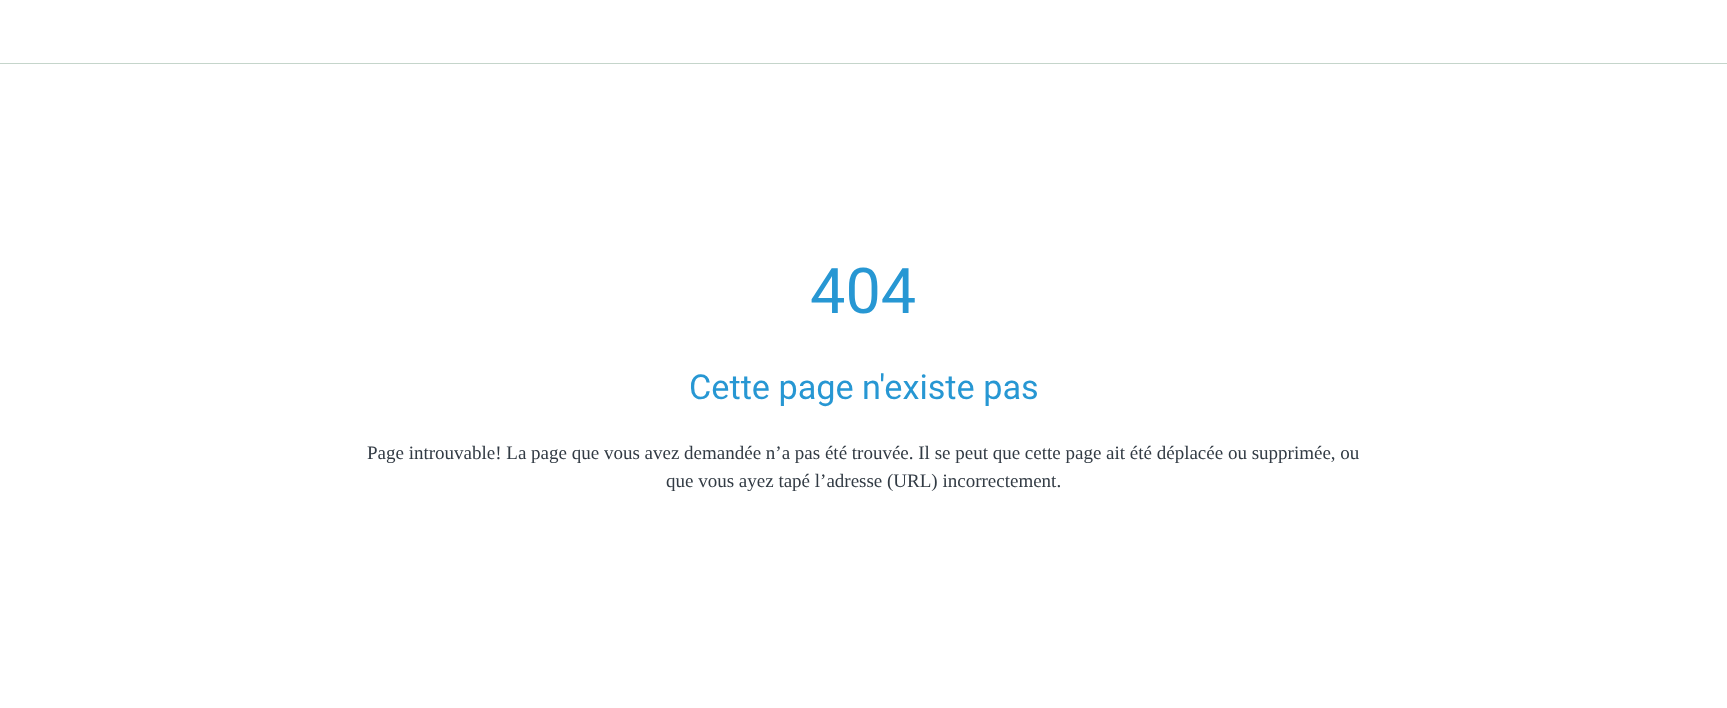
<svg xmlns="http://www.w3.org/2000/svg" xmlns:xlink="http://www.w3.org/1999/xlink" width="1727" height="708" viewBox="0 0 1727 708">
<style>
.cls-1{font:63px Roboto;fill:#2797d3}
.cls-2{font:34.25px Roboto;fill:#2797d3}
.cls-3{font:19px Liberation Serif;fill:#323b44}
</style>
<rect width="100%" height="100%" fill="#ffffff"/>
<rect fill="#c5d5cb" x="0" y="63" width="1727" height="1"/>
<text class="cls-1" x="810" y="313">404</text>
<text class="cls-2" x="689" y="399">Cette page n'existe pas</text>
<text class="cls-3" x="367" y="459">Page introuvable! La page que vous avez demandée n’a pas été trouvée. Il se peut que cette page ait été déplacée ou supprimée, ou</text>
<text class="cls-3" x="666" y="487">que vous ayez tapé l’adresse (URL) incorrectement.</text>
</svg>
